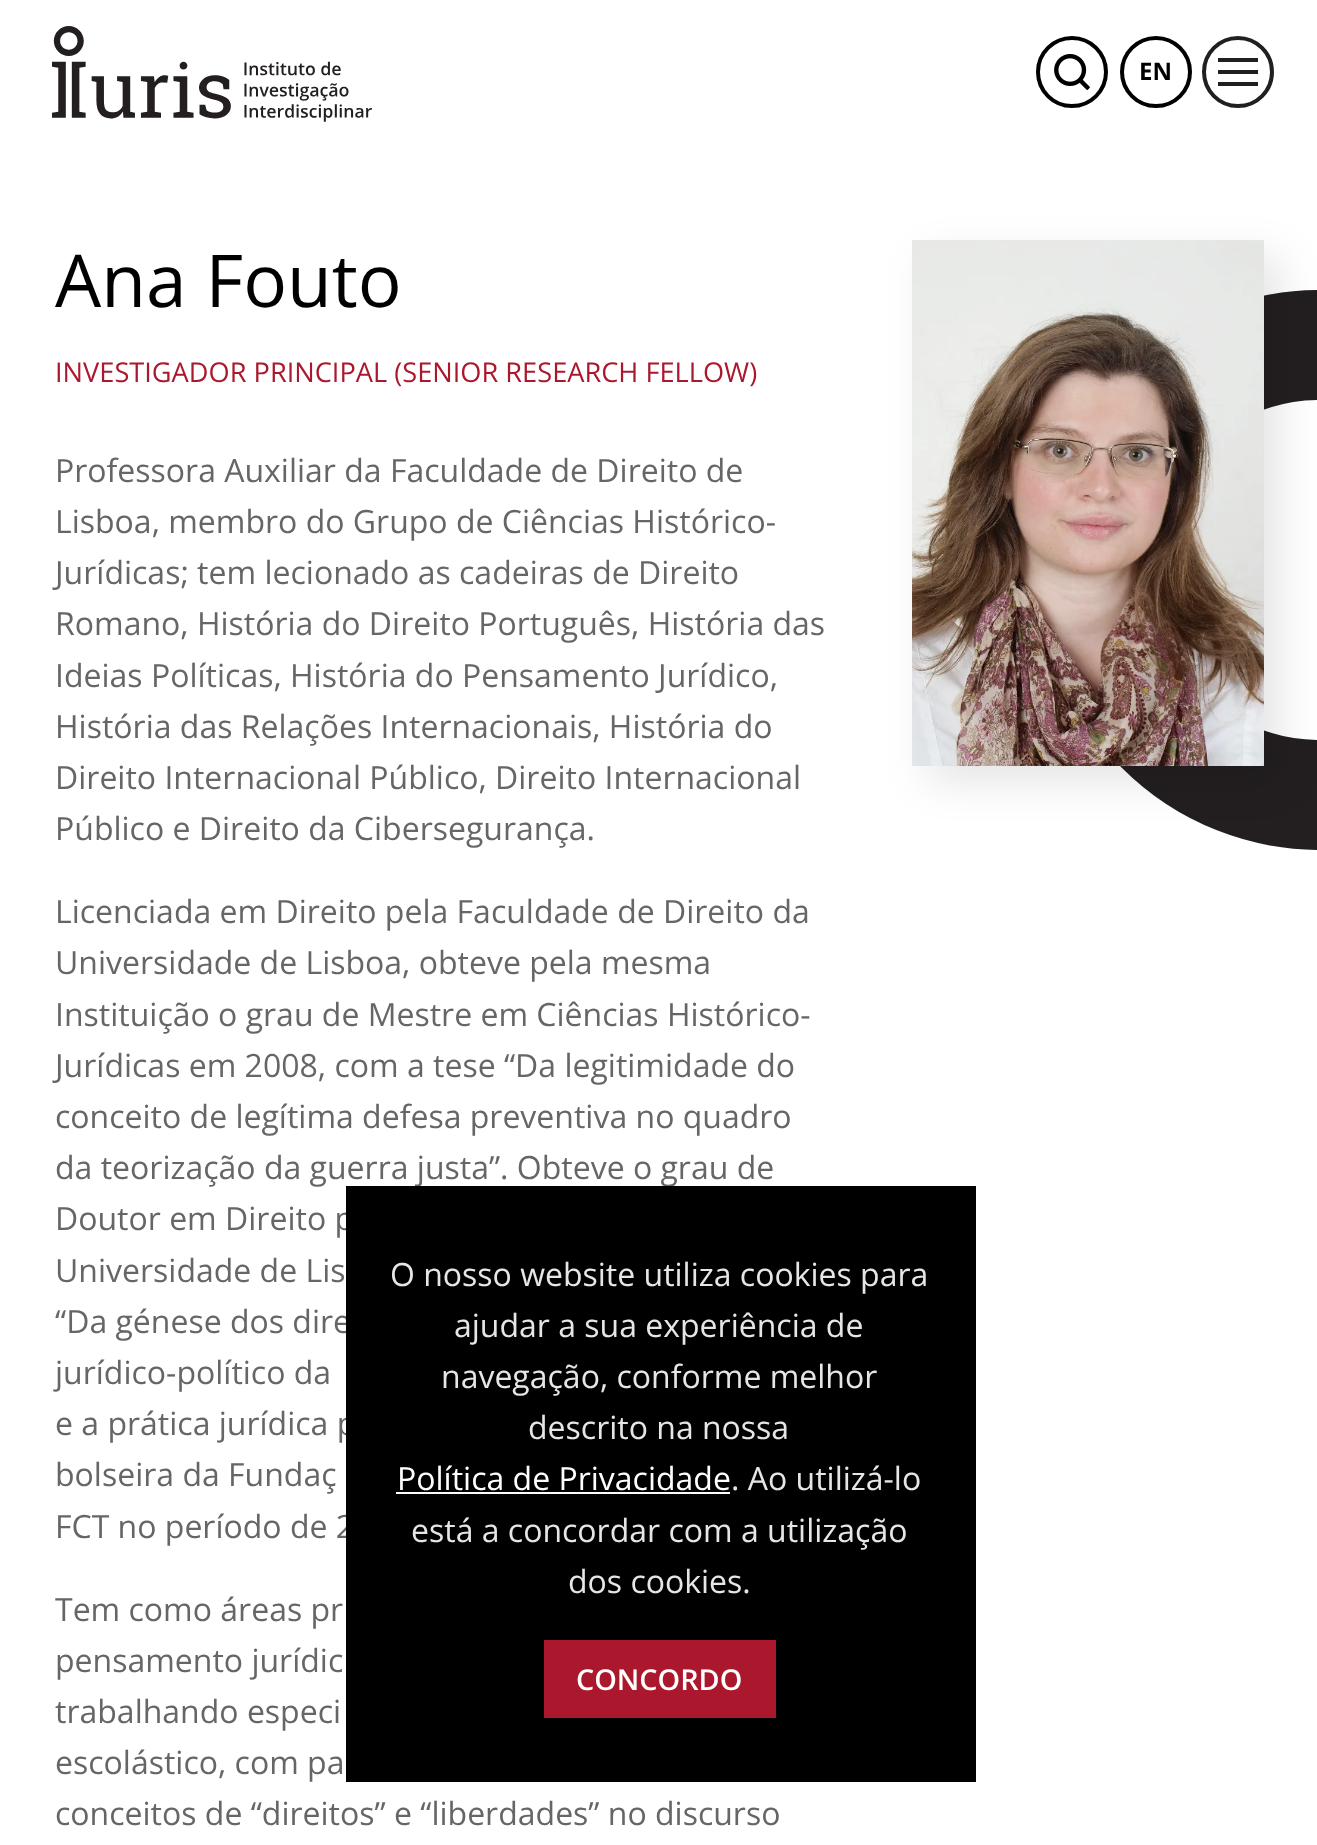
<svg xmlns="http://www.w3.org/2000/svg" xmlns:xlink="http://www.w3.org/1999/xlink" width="1317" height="1845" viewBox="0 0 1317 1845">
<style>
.cls-1{font:bold 24px Open Sans;fill:#000000}
.cls-2{font:73px Open Sans;fill:#000000}
.cls-3{font:27.2px Open Sans;fill:#ab182d}
.cls-4{font:32px Open Sans;fill:#666666}
.cls-5{font:32px Open Sans;fill:#e6e6e6}
.cls-6{font:32px Open Sans;fill:#ffffff}
.cls-7{font:600 28.75px Open Sans;fill:#ffffff}
</style>
<rect width="100%" height="100%" fill="#ffffff"/>
<image xlink:href="image0.png" x="52" y="26" width="320" height="96"/>
<circle fill="none" stroke="#231f20" stroke-width="4" cx="1238" cy="72" r="34"/>
<rect fill="#231f20" x="1218" y="58" width="40" height="4"/>
<rect fill="#231f20" x="1218" y="70" width="40" height="4"/>
<rect fill="#231f20" x="1218" y="82" width="40" height="4"/>
<image xlink:href="image1.png" x="1054" y="54" width="36" height="36"/>
<circle fill="none" stroke="#000000" stroke-width="4" cx="1072" cy="72" r="34"/>
<circle fill="none" stroke="#000000" stroke-width="4" cx="1156" cy="72" r="34"/>
<circle fill="none" stroke="#231f20" stroke-width="110" cx="1320" cy="570" r="225"/>
<rect fill="#000000" fill-opacity="0.1" filter="blur(20px)" x="928" y="256" width="352" height="526"/>
<image xlink:href="image2.png" x="912" y="240" width="352" height="526"/>
<text class="cls-1" x="1139" y="80">EN</text>
<text class="cls-2" x="55" y="307">Ana Fouto</text>
<text class="cls-3" x="55" y="382">INVESTIGADOR PRINCIPAL (SENIOR RESEARCH FELLOW)</text>
<text class="cls-4"><tspan x="55" y="482">Professora Auxiliar da Faculdade de Direito de</tspan><tspan x="55" y="533">Lisboa, membro do Grupo de Ciências Histórico-</tspan><tspan x="55" y="584">Jurídicas; tem lecionado as cadeiras de Direito</tspan><tspan x="55" y="635">Romano, História do Direito Português, História das</tspan><tspan x="55" y="687">Ideias Políticas, História do Pensamento Jurídico,</tspan><tspan x="55" y="738">História das Relações Internacionais, História do</tspan><tspan x="55" y="789">Direito Internacional Público, Direito Internacional</tspan><tspan x="55" y="840">Público e Direito da Cibersegurança.</tspan></text>
<text class="cls-4"><tspan x="55" y="923">Licenciada em Direito pela Faculdade de Direito da</tspan><tspan x="55" y="974">Universidade de Lisboa, obteve pela mesma</tspan><tspan x="55" y="1026">Instituição o grau de Mestre em Ciências Histórico-</tspan><tspan x="55" y="1077">Jurídicas em 2008, com a tese “Da legitimidade do</tspan><tspan x="55" y="1128">conceito de legítima defesa preventiva no quadro</tspan><tspan x="55" y="1179">da teorização da guerra justa”. Obteve o grau de</tspan><tspan x="55" y="1230">Doutor em Direito p</tspan><tspan x="55" y="1282">Universidade de Lis</tspan><tspan x="55" y="1333">“Da génese dos dire</tspan><tspan x="55" y="1384">jurídico-político da</tspan><tspan x="55" y="1435">e a prática jurídica p</tspan><tspan x="55" y="1486">bolseira da Fundaç</tspan><tspan x="55" y="1538">FCT no período de 2</tspan></text>
<text class="cls-4"><tspan x="55" y="1621">Tem como áreas pr</tspan><tspan x="55" y="1672">pensamento jurídic</tspan><tspan x="55" y="1723">trabalhando especi</tspan><tspan x="55" y="1774">escolástico, com pa</tspan><tspan x="55" y="1825">conceitos de “direitos” e “liberdades” no discurso</tspan></text>
<rect fill="#000000" x="346" y="1186" width="630" height="596"/>
<text class="cls-5" x="390" y="1286">O nosso website utiliza cookies para</text>
<text class="cls-5" x="454" y="1337">ajudar a sua experiência de</text>
<text class="cls-5" x="441" y="1388">navegação, conforme melhor</text>
<text class="cls-5" x="528" y="1439">descrito na nossa</text>
<text class="cls-6" x="397" y="1490">Política de Privacidade</text>
<rect fill="#ffffff" x="396" y="1492" width="334" height="2"/>
<text class="cls-5" x="731" y="1490">. Ao utilizá-lo</text>
<text class="cls-5" x="411" y="1542">está a concordar com a utilização</text>
<text class="cls-5" x="568" y="1593">dos cookies.</text>
<rect fill="#ab182d" x="544" y="1640" width="232" height="78"/>
<text class="cls-7" x="576" y="1690">CONCORDO</text>
</svg>
